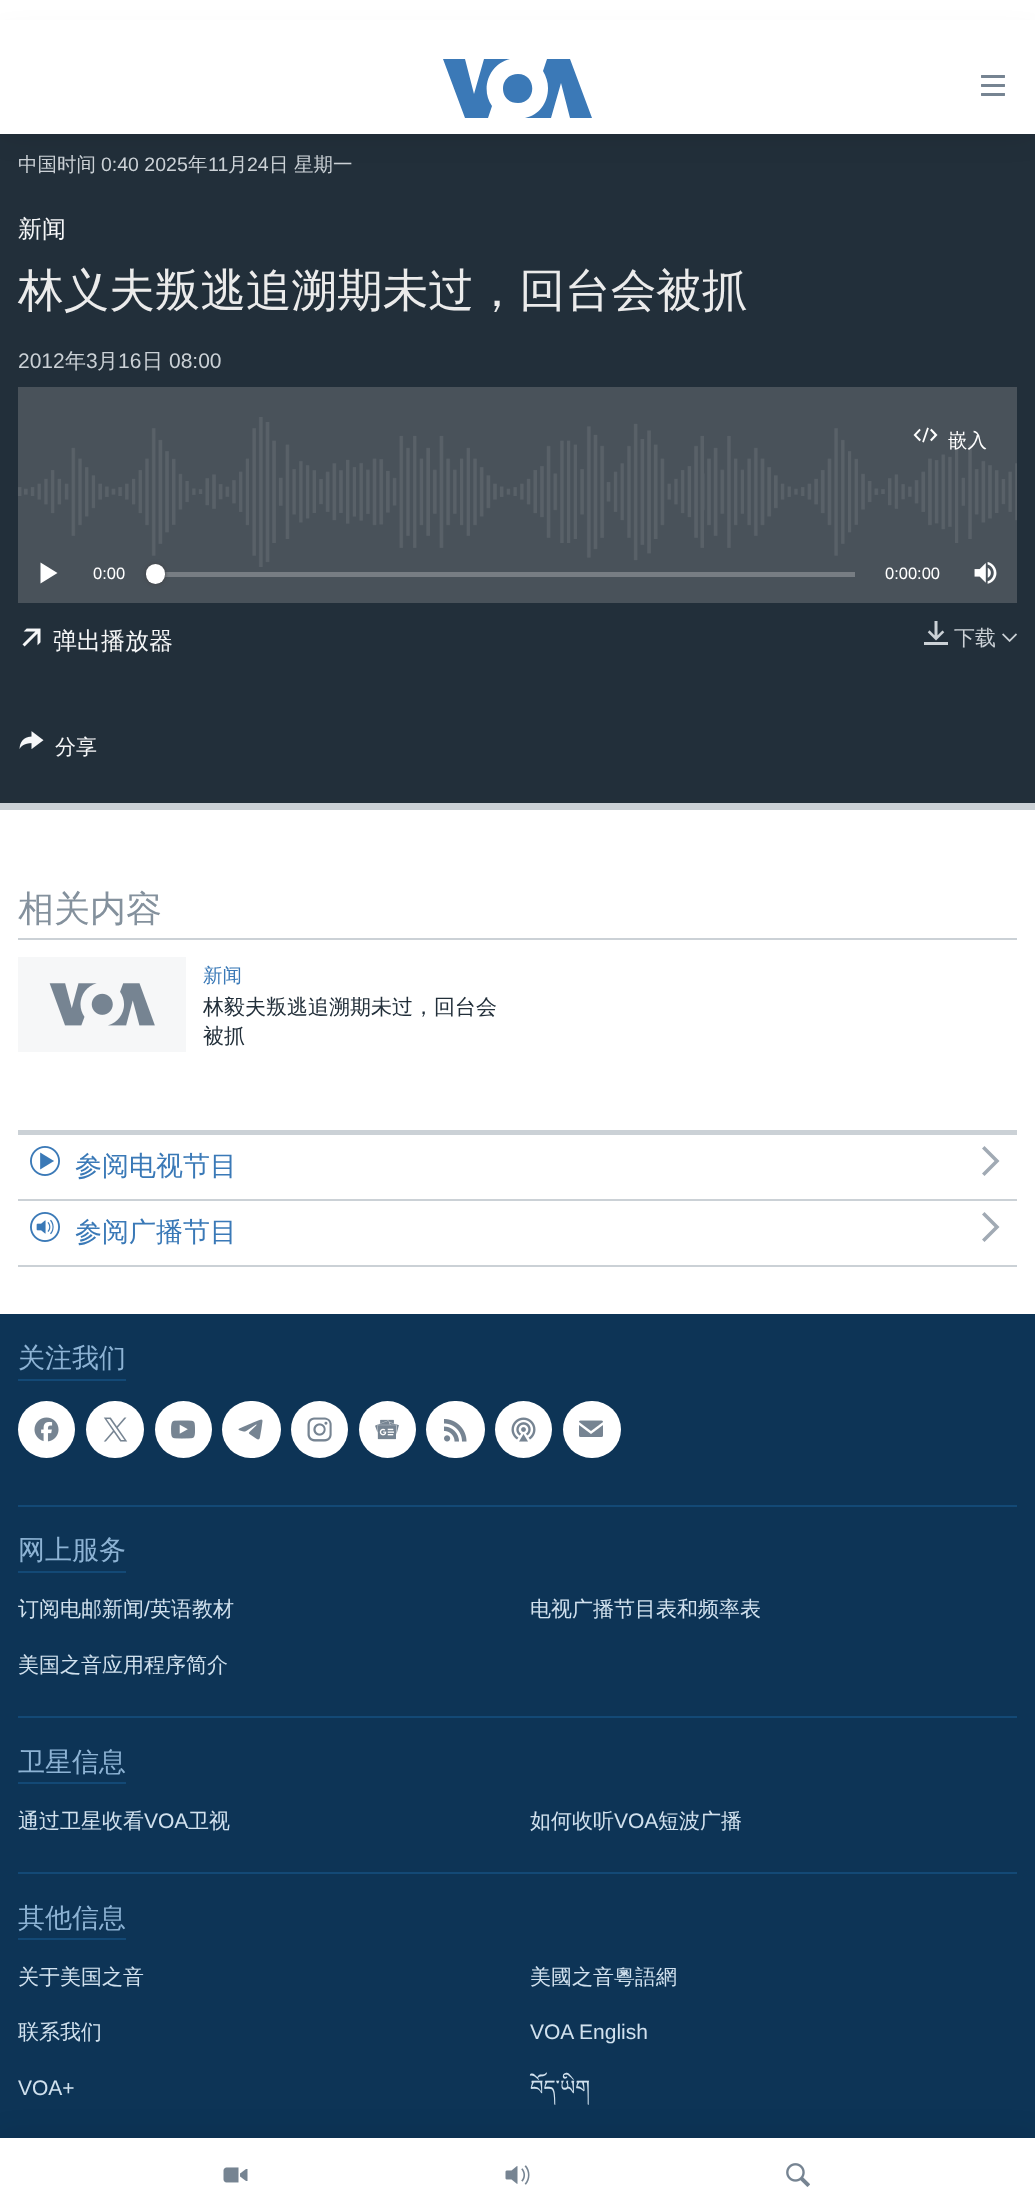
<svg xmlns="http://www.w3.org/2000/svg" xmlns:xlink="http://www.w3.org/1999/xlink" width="1035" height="2212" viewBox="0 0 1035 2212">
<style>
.cls-1{font:500 19.5px WenQuanYi Zen Hei;fill:#cbd1d6}
.cls-2{font:19.5px Liberation Sans;fill:#cbd1d6}
.cls-3{font:500 24px WenQuanYi Zen Hei;fill:#f6f7f8}
.cls-4{font:500 45.6px WenQuanYi Zen Hei;fill:#ebebeb}
.cls-5{font:21px Liberation Sans;fill:#cbd1d6}
.cls-6{font:500 21px WenQuanYi Zen Hei;fill:#cbd1d6}
.cls-7{font:500 19.5px WenQuanYi Zen Hei;fill:#ffffff}
.cls-8{font:16.5px Liberation Sans;fill:#ffffff}
.cls-9{font:500 21px WenQuanYi Zen Hei;fill:#f6f7f8}
.cls-10{font:500 36px WenQuanYi Zen Hei;fill:#84919d}
.cls-11{font:500 19.5px WenQuanYi Zen Hei;fill:#3a79b7}
.cls-12{font:500 21px WenQuanYi Zen Hei;fill:#222f3a}
.cls-13{font:500 27px WenQuanYi Zen Hei;fill:#3a79b7}
.cls-14{font:500 27px WenQuanYi Zen Hei;fill:#8db3d4}
.cls-15{font:500 21px WenQuanYi Zen Hei;fill:#d1e1ee}
.cls-16{font:21px Liberation Sans;fill:#d1e1ee}
.cls-17{font:21px Noto Serif Tibetan;fill:#d1e1ee}
</style>
<rect width="100%" height="100%" fill="#ffffff"/>
<rect fill="#222f3a" x="0" y="134" width="1035" height="669"/>
<rect fill="#000000" fill-opacity="0.1" filter="blur(15px)" x="0" y="39" width="1035" height="95"/>
<rect fill="#ffffff" x="0" y="20" width="1035" height="114"/>
<path fill="#3b79b7" d="M492 106L488 118H465L443 59H465L474 94L484 59H510C489 64 480 89 492 106ZM518 74C498 74 498 103 518 103C537 103 537 74 518 74ZM548 88C548 103 539 115 525 118H551L561 83L570 118H592L570 59H547L543 71C546 76 548 82 548 88Z"/>
<image xlink:href="image0.png" x="981" y="75" width="24" height="21"/>
<rect fill="#0d3456" x="0" y="1314" width="1035" height="824"/>
<rect fill="#000000" fill-opacity="0.1" filter="blur(15px)" x="0" y="2138" width="1035" height="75"/>
<rect fill="#ffffff" x="0" y="2138" width="1035" height="74"/>
<image xlink:href="image1.png" x="223" y="2167" width="25" height="16"/>
<image xlink:href="image2.png" x="505" y="2165" width="25" height="20"/>
<image xlink:href="image3.png" x="786" y="2163" width="24" height="24"/>
<rect fill="#cbd1d6" x="0" y="803" width="1035" height="7"/>
<rect fill="#49525a" x="18" y="387" width="999" height="216"/>
<image xlink:href="image4.png" x="18" y="417" width="999" height="150"/>
<image xlink:href="image5.png" x="913" y="427" width="25" height="16"/>
<path fill="#ffffff" d="M40.5 583.5L57.5 573L40.5 562.5Z"/>
<rect fill="#777d83" x="164" y="572" width="691" height="5"/>
<rect fill="#414144" filter="blur(2px)" x="146" y="564" width="19" height="20" rx="9.5"/>
<rect fill="#ffffff" x="146" y="564" width="19" height="20" rx="9.5"/>
<image xlink:href="image6.png" x="974" y="562" width="23" height="22"/>
<image xlink:href="image7.png" x="22" y="628" width="19" height="19"/>
<image xlink:href="image8.png" x="924" y="621" width="24" height="24"/>
<image xlink:href="image9.png" x="1002" y="633" width="15" height="9"/>
<image xlink:href="image10.png" x="19" y="731" width="25" height="18"/>
<rect fill="#cbd1d6" x="18" y="938" width="999" height="2"/>
<rect fill="#f6f7f8" x="18" y="957" width="168" height="95"/>
<image xlink:href="image11.png" x="49" y="983" width="106" height="43"/>
<rect fill="#cbd1d6" x="18" y="1130" width="999" height="5"/>
<rect fill="#cbd1d6" x="18" y="1199" width="999" height="2"/>
<image xlink:href="image12.png" x="30" y="1146" width="30" height="30"/>
<path fill="#a1aab4" d="M984.5 1176L999.5 1161L984.5 1146L982 1148.5L994.5 1161L982 1173.5Z"/>
<rect fill="#cbd1d6" x="18" y="1265" width="999" height="2"/>
<image xlink:href="image13.png" x="30" y="1212" width="30" height="30"/>
<path fill="#a1aab4" d="M984.5 1242L999.5 1227L984.5 1212L982 1214.5L994.5 1227L982 1239.5Z"/>
<rect fill="#134976" x="18" y="1379" width="108" height="2"/>
<circle fill="#ffffff" cx="46.5" cy="1429.5" r="28.5"/>
<image xlink:href="image14.png" x="34" y="1417" width="25" height="25"/>
<rect fill="#ffffff" x="86" y="1401" width="58" height="57" rx="28.5"/>
<image xlink:href="image15.png" x="103" y="1417" width="25" height="25"/>
<circle fill="#ffffff" cx="183.5" cy="1429.5" r="28.5"/>
<image xlink:href="image16.png" x="171" y="1420" width="24" height="19"/>
<rect fill="#ffffff" x="222" y="1401" width="59" height="57" rx="28.5"/>
<image xlink:href="image17.png" x="238" y="1419" width="25" height="21"/>
<circle fill="#ffffff" cx="319.5" cy="1429.5" r="28.5"/>
<image xlink:href="image18.png" x="307" y="1417" width="25" height="25"/>
<circle fill="#ffffff" cx="387.5" cy="1429.5" r="28.5"/>
<image xlink:href="image19.png" x="375" y="1419" width="24" height="21"/>
<rect fill="#ffffff" x="426" y="1401" width="59" height="57" rx="28.5"/>
<image xlink:href="image20.png" x="444" y="1419" width="23" height="23"/>
<circle fill="#ffffff" cx="523.5" cy="1429.5" r="28.5"/>
<image xlink:href="image21.png" x="511" y="1417" width="25" height="25"/>
<rect fill="#ffffff" x="563" y="1401" width="58" height="57" rx="28.5"/>
<image xlink:href="image22.png" x="579" y="1420" width="24" height="17"/>
<rect fill="#134976" x="18" y="1505" width="999" height="2"/>
<rect fill="#134976" x="18" y="1571" width="108" height="2"/>
<rect fill="#134976" x="18" y="1716" width="999" height="2"/>
<rect fill="#134976" x="18" y="1782" width="108" height="2"/>
<rect fill="#134976" x="18" y="1872" width="999" height="2"/>
<rect fill="#134976" x="18" y="1938" width="108" height="2"/>
<text class="cls-1" x="18" y="171">中国时间</text>
<text class="cls-2" x="101" y="171">0:40 2025</text>
<text class="cls-1" x="188" y="171">年</text>
<text class="cls-2" x="208" y="171">11</text>
<text class="cls-1" x="228" y="171">月</text>
<text class="cls-2" x="247" y="171">24</text>
<text class="cls-1" x="269" y="171">日</text>
<text class="cls-1" x="294" y="171">星期一</text>
<text class="cls-3" x="18" y="237">新闻</text>
<text class="cls-4" x="18" y="306">林义夫叛逃追溯期未过，回台会被抓</text>
<text class="cls-5" x="18" y="368">2012</text>
<text class="cls-6" x="65" y="368">年</text>
<text class="cls-5" x="86" y="368">3</text>
<text class="cls-6" x="97" y="368">月</text>
<text class="cls-5" x="118" y="368">16</text>
<text class="cls-6" x="142" y="368">日</text>
<text class="cls-5" x="169" y="368">08:00</text>
<text class="cls-7" x="948" y="447">嵌入</text>
<text class="cls-8" x="93" y="579">0:00</text>
<text class="cls-8" x="885" y="579">0:00:00</text>
<text class="cls-3" x="53" y="649">弹出播放器</text>
<text class="cls-6" x="954" y="645">下载</text>
<text class="cls-9" x="55" y="754">分享</text>
<text class="cls-10" x="18" y="921">相关内容</text>
<text class="cls-11" x="203" y="982">新闻</text>
<text class="cls-12"><tspan x="203" y="1014">林毅夫叛逃追溯期未过，回台会</tspan><tspan x="203" y="1043">被抓</tspan></text>
<text class="cls-13" x="75" y="1175">参阅电视节目</text>
<text class="cls-13" x="75" y="1241">参阅广播节目</text>
<text class="cls-14" x="18" y="1367">关注我们</text>
<text class="cls-14" x="18" y="1559">网上服务</text>
<text class="cls-15" x="18" y="1616">订阅电邮新闻</text>
<text class="cls-16" x="144" y="1616">/</text>
<text class="cls-15" x="150" y="1616">英语教材</text>
<text class="cls-15" x="530" y="1616">电视广播节目表和频率表</text>
<text class="cls-15" x="18" y="1672">美国之音应用程序简介</text>
<text class="cls-14" x="18" y="1771">卫星信息</text>
<text class="cls-15" x="18" y="1828">通过卫星收看</text>
<text class="cls-16" x="144" y="1828">VOA</text>
<text class="cls-15" x="188" y="1828">卫视</text>
<text class="cls-15" x="530" y="1828">如何收听</text>
<text class="cls-16" x="614" y="1828">VOA</text>
<text class="cls-15" x="658" y="1828">短波广播</text>
<text class="cls-14" x="18" y="1927">其他信息</text>
<text class="cls-15" x="18" y="1984">关于美国之音</text>
<text class="cls-15" x="530" y="1984">美國之音粵語網</text>
<text class="cls-15" x="18" y="2039">联系我们</text>
<text class="cls-16" x="530" y="2039">VOA English</text>
<text class="cls-16" x="18" y="2095">VOA+</text>
<text class="cls-17" x="530" y="2095">བོད་ཡིག</text>
</svg>
